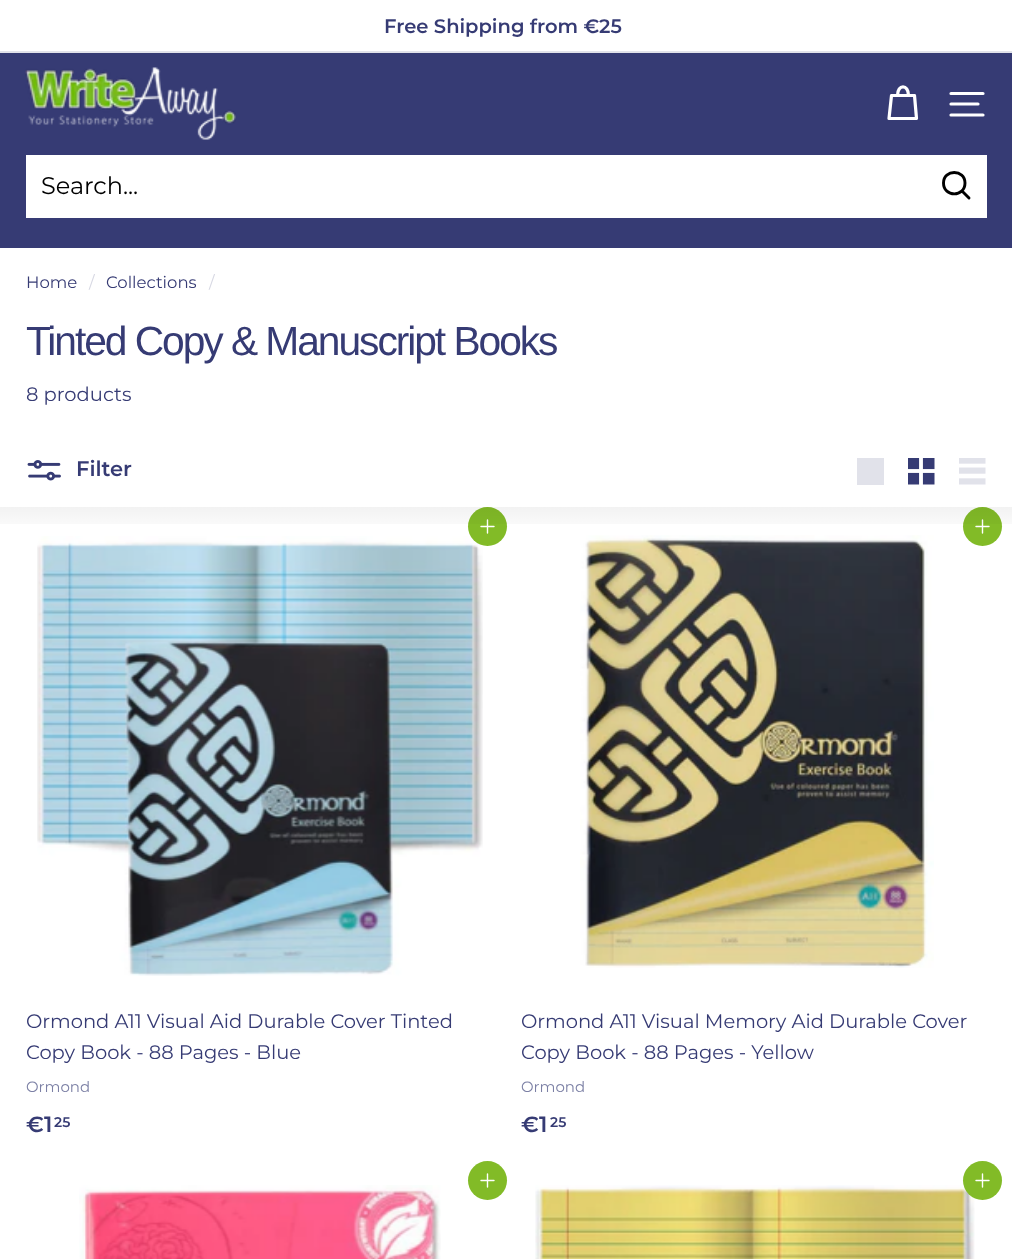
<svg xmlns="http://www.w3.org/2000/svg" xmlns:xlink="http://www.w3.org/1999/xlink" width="1012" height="1259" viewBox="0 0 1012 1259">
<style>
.cls-1{font:600 19.5px Montserrat;fill:#363b74}
.cls-2{font:24px Montserrat;fill:#000000}
.cls-3{font:16.5px Montserrat;fill:#363b74}
.cls-4{font:16.5px Montserrat;fill:#d7d8e3}
.cls-5{font:40.75px Liberation Sans;letter-spacing:-2.05px;fill:#363b74}
.cls-6{font:19.5px Montserrat;fill:#363b74}
.cls-7{font:600 21px Montserrat;fill:#363b74}
.cls-8{font:15px Montserrat;fill:#7c80a5}
.cls-9{font:600 22px Montserrat;fill:#363b74}
.cls-10{font:600 14px Montserrat;fill:#363b74}
</style>
<defs>
<linearGradient id="g1" gradientUnits="userSpaceOnUse" x1="506" y1="507" x2="506" y2="537"><stop offset="0" stop-color="#000000" stop-opacity="0.05"/><stop offset="1" stop-color="#000000" stop-opacity="0"/></linearGradient>
</defs>
<rect width="100%" height="100%" fill="#ffffff"/>
<rect fill="#e1e2ea" x="0" y="51" width="1012" height="2"/>
<rect fill="#363b74" x="0" y="53" width="1012" height="102"/>
<image xlink:href="image0.png" x="25" y="67" width="211" height="73"/>
<path fill="none" stroke="#ffffff" stroke-width="3.2" stroke-linecap="round" stroke-linejoin="round" d="M897.5 95.5C897.5 84 908.5 84 908.5 95.5M891.5 95.5H914.5L916.5 118.5H889Z"/>
<path fill="none" stroke="#ffffff" stroke-width="3.2" stroke-linecap="round" stroke-linejoin="round" d="M951 93.5H983M951 104H978M951 115H983"/>
<path fill="#363b74" d="M0 155V248H1012V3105H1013V155Z"/>
<rect fill="#ffffff" x="26" y="155" width="961" height="63"/>
<path fill="none" stroke="#000000" stroke-width="2.9" stroke-linecap="round" stroke-linejoin="round" d="M965 183C965 197.5 943.5 197.5 943.5 183C943.5 169 965 169 965 183ZM969 198L962 191"/>
<image xlink:href="image1.png" x="27" y="460" width="34" height="21"/>
<rect fill="#e1e2ea" x="857" y="458" width="27" height="27"/>
<image xlink:href="image2.png" x="908" y="458" width="27" height="27"/>
<image xlink:href="image3.png" x="959" y="458" width="27" height="27"/>
<image xlink:href="image4.png" x="37" y="536" width="446" height="440"/>
<circle fill="#82bb27" cx="487.5" cy="526.5" r="19.5"/>
<path fill="none" stroke="#ffffff" stroke-width="1.4" stroke-linecap="round" stroke-linejoin="round" d="M487.5 520V533M494 526.5H481"/>
<circle fill="#82bb27" cx="982.5" cy="526.5" r="19.5"/>
<path fill="none" stroke="#ffffff" stroke-width="1.4" stroke-linecap="round" stroke-linejoin="round" d="M982.5 520V533M989 526.5H976"/>
<rect fill="url(#g1)" x="0" y="507" width="1012" height="17"/>
<image xlink:href="image5.png" x="580" y="535" width="354" height="433"/>
<circle fill="#82bb27" cx="487.5" cy="1180.5" r="19.5"/>
<path fill="none" stroke="#ffffff" stroke-width="1.4" stroke-linecap="round" stroke-linejoin="round" d="M487.5 1174V1187M494 1180.5H481"/>
<image xlink:href="image6.png" x="79" y="1185" width="362" height="74"/>
<image xlink:href="image7.png" x="535" y="1185" width="440" height="74"/>
<circle fill="#82bb27" cx="982.5" cy="1180.5" r="19.5"/>
<path fill="none" stroke="#ffffff" stroke-width="1.4" stroke-linecap="round" stroke-linejoin="round" d="M982.5 1174V1187M989 1180.5H976"/>
<text class="cls-1" x="384" y="33">Free Shipping from €25</text>
<text class="cls-2" x="41" y="194">Search...</text>
<text class="cls-3" x="26" y="288">Home</text>
<text class="cls-4" x="89" y="288">/</text>
<text class="cls-3" x="106" y="288">Collections</text>
<text class="cls-4" x="209" y="288">/</text>
<text class="cls-5" x="26" y="355">Tinted Copy &amp; Manuscript Books</text>
<text class="cls-6" x="26" y="401">8 products</text>
<text class="cls-7" x="76" y="476">Filter</text>
<text class="cls-6"><tspan x="26" y="1028">Ormond A11 Visual Aid Durable Cover Tinted</tspan><tspan x="26" y="1059">Copy Book - 88 Pages - Blue</tspan></text>
<text class="cls-8" x="26" y="1092">Ormond</text>
<text class="cls-9" x="26" y="1132">€1</text>
<text class="cls-10" x="54" y="1127">25</text>
<text class="cls-6"><tspan x="521" y="1028">Ormond A11 Visual Memory Aid Durable Cover</tspan><tspan x="521" y="1059">Copy Book - 88 Pages - Yellow</tspan></text>
<text class="cls-8" x="521" y="1092">Ormond</text>
<text class="cls-9" x="521" y="1132">€1</text>
<text class="cls-10" x="550" y="1127">25</text>
</svg>
